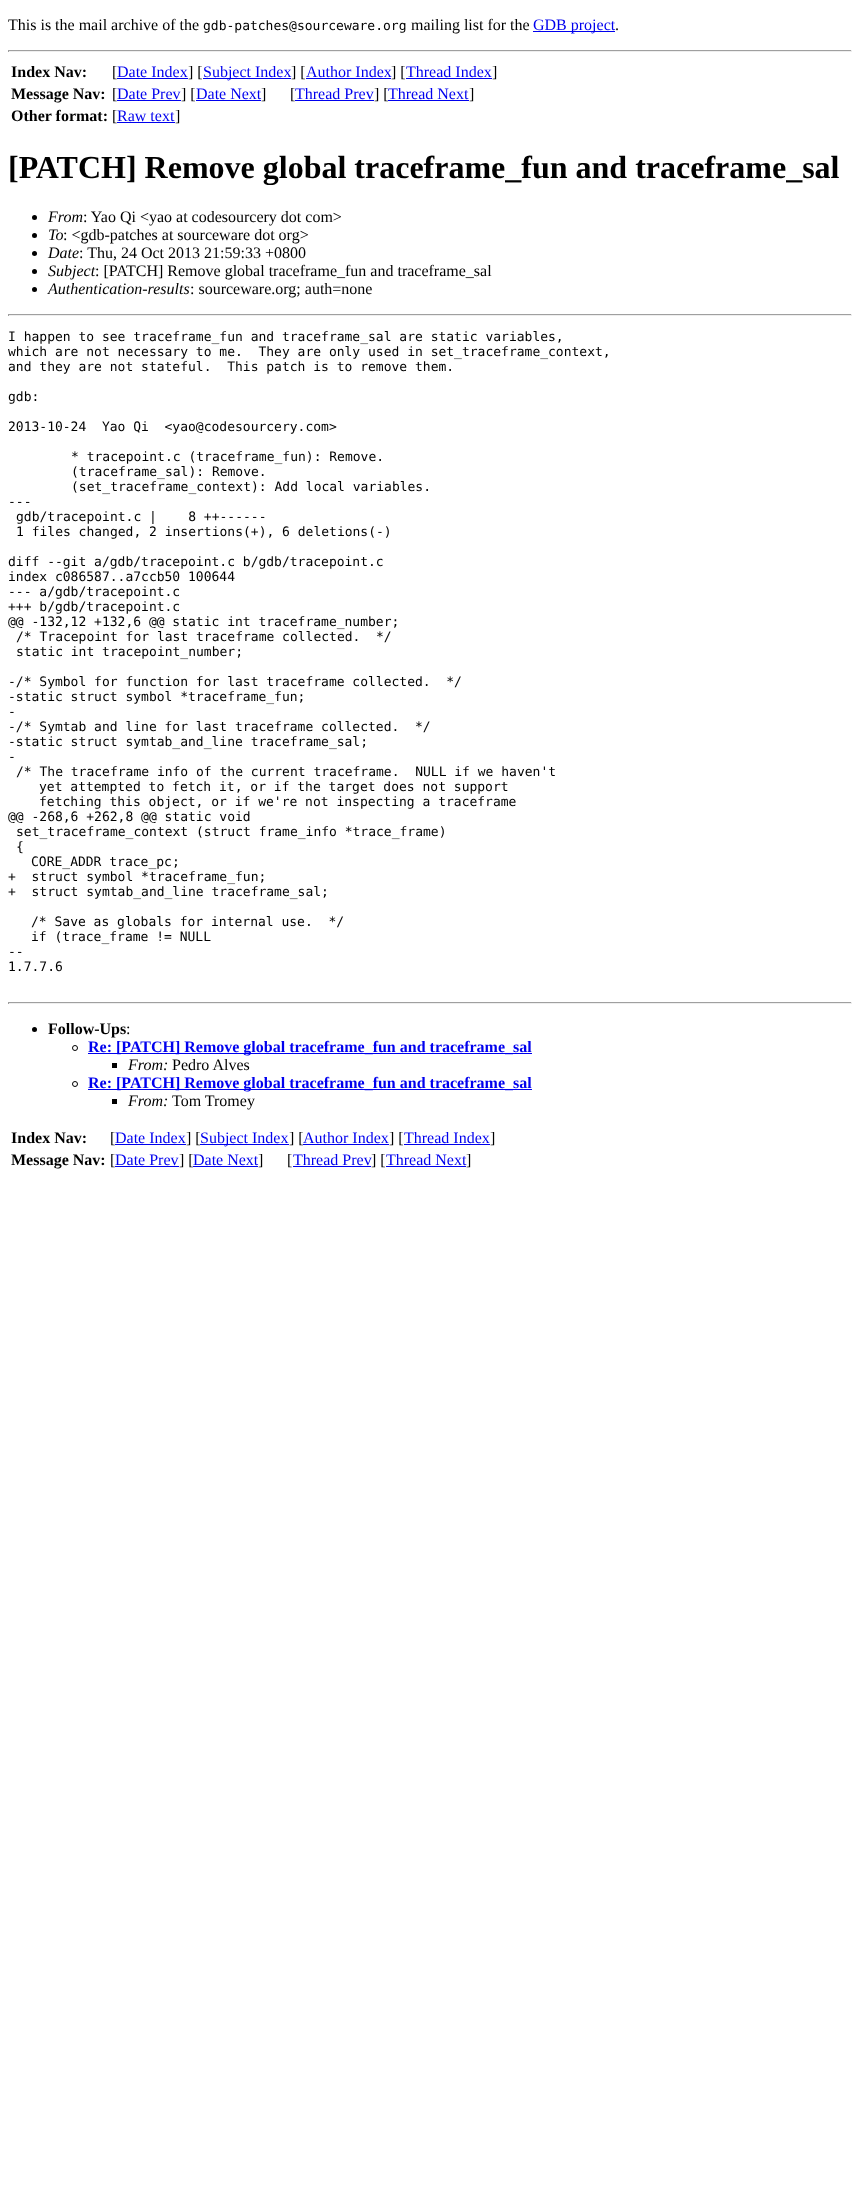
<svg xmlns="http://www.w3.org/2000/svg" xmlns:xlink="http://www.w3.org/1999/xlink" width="860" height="2194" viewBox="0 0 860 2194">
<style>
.cls-1{font:16px Liberation Serif;fill:#000000}
.cls-2{font:13px DejaVu Sans Mono;fill:#000000}
.cls-3{font:16px Liberation Serif;fill:#0000ee}
.cls-4{font:bold 16px Liberation Serif;fill:#000000}
.cls-5{font:bold 32px Liberation Serif;fill:#000000}
.cls-6{font:italic 16px Liberation Serif;fill:#000000}
.cls-7{font:bold 16px Liberation Serif;fill:#0000ee}
</style>
<rect width="100%" height="100%" fill="#ffffff"/>
<rect fill="#0000ee" x="533" y="31" width="82" height="1"/>
<rect fill="#9f9f9f" x="8" y="50" width="844" height="1"/>
<rect fill="#eeeeee" x="851" y="50" width="1" height="2"/>
<rect fill="#eeeeee" x="8" y="51" width="844" height="1"/>
<rect fill="#9f9f9f" x="8" y="50" width="1" height="2"/>
<rect fill="#0000ee" x="117" y="78" width="71" height="1"/>
<rect fill="#0000ee" x="203" y="78" width="88" height="1"/>
<rect fill="#0000ee" x="306" y="78" width="85" height="1"/>
<rect fill="#0000ee" x="406" y="78" width="86" height="1"/>
<rect fill="#0000ee" x="117" y="100" width="64" height="1"/>
<rect fill="#0000ee" x="196" y="100" width="65" height="1"/>
<rect fill="#0000ee" x="295" y="100" width="79" height="1"/>
<rect fill="#0000ee" x="388" y="100" width="81" height="1"/>
<rect fill="#0000ee" x="117" y="122" width="58" height="1"/>
<circle fill="#000000" cx="34.5" cy="217.5" r="2.5"/>
<circle fill="#000000" cx="34.5" cy="235.5" r="2.5"/>
<circle fill="#000000" cx="34.5" cy="253.5" r="2.5"/>
<circle fill="#000000" cx="34.5" cy="271.5" r="2.5"/>
<circle fill="#000000" cx="34.5" cy="289.5" r="2.5"/>
<rect fill="#9f9f9f" x="8" y="314" width="844" height="1"/>
<rect fill="#eeeeee" x="851" y="314" width="1" height="2"/>
<rect fill="#eeeeee" x="8" y="315" width="844" height="1"/>
<rect fill="#9f9f9f" x="8" y="314" width="1" height="2"/>
<rect fill="#9f9f9f" x="8" y="1002" width="844" height="1"/>
<rect fill="#eeeeee" x="851" y="1002" width="1" height="2"/>
<rect fill="#eeeeee" x="8" y="1003" width="844" height="1"/>
<rect fill="#9f9f9f" x="8" y="1002" width="1" height="2"/>
<circle fill="#000000" cx="34.5" cy="1029.5" r="2.5"/>
<circle fill="none" stroke="#000000" cx="75" cy="1048" r="2.5"/>
<rect fill="#0000ee" x="88" y="1053" width="444" height="1"/>
<rect fill="#000000" x="112" y="1063" width="5" height="5"/>
<circle fill="none" stroke="#000000" cx="75" cy="1084" r="2.5"/>
<rect fill="#0000ee" x="88" y="1089" width="444" height="1"/>
<rect fill="#000000" x="112" y="1099" width="5" height="5"/>
<rect fill="#0000ee" x="115" y="1144" width="71" height="1"/>
<rect fill="#0000ee" x="200" y="1144" width="89" height="1"/>
<rect fill="#0000ee" x="303" y="1144" width="86" height="1"/>
<rect fill="#0000ee" x="404" y="1144" width="86" height="1"/>
<rect fill="#0000ee" x="115" y="1166" width="64" height="1"/>
<rect fill="#0000ee" x="193" y="1166" width="65" height="1"/>
<rect fill="#0000ee" x="293" y="1166" width="78" height="1"/>
<rect fill="#0000ee" x="386" y="1166" width="80" height="1"/>
<text class="cls-1" x="8" y="30">This is the mail archive of the</text>
<text class="cls-2" x="203" y="30">gdb-patches@sourceware.org</text>
<text class="cls-1" x="411" y="30">mailing list for the</text>
<text class="cls-3" x="533" y="30">GDB project</text>
<text class="cls-1" x="615" y="30">.</text>
<text class="cls-4" x="11" y="77">Index Nav:</text>
<text class="cls-1" x="112" y="77">[</text>
<text class="cls-3" x="117" y="77">Date Index</text>
<text class="cls-1" x="188" y="77">] [</text>
<text class="cls-3" x="203" y="77">Subject Index</text>
<text class="cls-1" x="291" y="77">] [</text>
<text class="cls-3" x="306" y="77">Author Index</text>
<text class="cls-1" x="391" y="77">] [</text>
<text class="cls-3" x="406" y="77">Thread Index</text>
<text class="cls-1" x="492" y="77">]</text>
<text class="cls-4" x="11" y="99">Message Nav:</text>
<text class="cls-1" x="112" y="99">[</text>
<text class="cls-3" x="117" y="99">Date Prev</text>
<text class="cls-1" x="181" y="99">] [</text>
<text class="cls-3" x="196" y="99">Date Next</text>
<text class="cls-1" x="261" y="99">]</text>
<text class="cls-1" x="290" y="99">[</text>
<text class="cls-3" x="295" y="99">Thread Prev</text>
<text class="cls-1" x="374" y="99">] [</text>
<text class="cls-3" x="388" y="99">Thread Next</text>
<text class="cls-1" x="469" y="99">]</text>
<text class="cls-4" x="11" y="121">Other format:</text>
<text class="cls-1" x="112" y="121">[</text>
<text class="cls-3" x="117" y="121">Raw text</text>
<text class="cls-1" x="175" y="121">]</text>
<text class="cls-5" x="8" y="178">[PATCH] Remove global traceframe_fun and traceframe_sal</text>
<text class="cls-6" x="48" y="222">From</text>
<text class="cls-1" x="83" y="222">: Yao Qi &lt;yao at codesourcery dot com&gt;</text>
<text class="cls-6" x="48" y="240">To</text>
<text class="cls-1" x="63" y="240">: &lt;gdb-patches at sourceware dot org&gt;</text>
<text class="cls-6" x="48" y="258">Date</text>
<text class="cls-1" x="79" y="258">: Thu, 24 Oct 2013 21:59:33 +0800</text>
<text class="cls-6" x="48" y="276">Subject</text>
<text class="cls-1" x="95" y="276">: [PATCH] Remove global traceframe_fun and traceframe_sal</text>
<text class="cls-6" x="48" y="294">Authentication-results</text>
<text class="cls-1" x="190" y="294">: sourceware.org; auth=none</text>
<text class="cls-2" xml:space="preserve"><tspan x="8" y="341">I happen to see traceframe_fun and traceframe_sal are static variables,</tspan><tspan x="8" y="356">which are not necessary to me.  They are only used in set_traceframe_context,</tspan><tspan x="8" y="371">and they are not stateful.  This patch is to remove them.</tspan></text>
<text class="cls-2" x="8" y="401">gdb:</text>
<text class="cls-2" xml:space="preserve" x="8" y="431">2013-10-24  Yao Qi  &lt;yao@codesourcery.com&gt;</text>
<text class="cls-2"><tspan x="71" y="461">* tracepoint.c (traceframe_fun): Remove.</tspan><tspan x="71" y="476">(traceframe_sal): Remove.</tspan><tspan x="71" y="491">(set_traceframe_context): Add local variables.</tspan></text>
<text class="cls-2" x="8" y="506">---</text>
<text class="cls-2" xml:space="preserve"><tspan x="16" y="521">gdb/tracepoint.c |    8 ++------</tspan><tspan x="16" y="536">1 files changed, 2 insertions(+), 6 deletions(-)</tspan></text>
<text class="cls-2"><tspan x="8" y="566">diff --git a/gdb/tracepoint.c b/gdb/tracepoint.c</tspan><tspan x="8" y="581">index c086587..a7ccb50 100644</tspan><tspan x="8" y="596">--- a/gdb/tracepoint.c</tspan><tspan x="8" y="611">+++ b/gdb/tracepoint.c</tspan><tspan x="8" y="626">@@ -132,12 +132,6 @@ static int traceframe_number;</tspan></text>
<text class="cls-2" xml:space="preserve"><tspan x="16" y="641">/* Tracepoint for last traceframe collected.  */</tspan><tspan x="16" y="656">static int tracepoint_number;</tspan></text>
<text class="cls-2" xml:space="preserve"><tspan x="8" y="686">-/* Symbol for function for last traceframe collected.  */</tspan><tspan x="8" y="701">-static struct symbol *traceframe_fun;</tspan><tspan x="8" y="716">-</tspan><tspan x="8" y="731">-/* Symtab and line for last traceframe collected.  */</tspan><tspan x="8" y="746">-static struct symtab_and_line traceframe_sal;</tspan><tspan x="8" y="761">-</tspan></text>
<text class="cls-2" xml:space="preserve" x="16" y="776">/* The traceframe info of the current traceframe.  NULL if we haven't</text>
<text class="cls-2"><tspan x="39" y="791">yet attempted to fetch it, or if the target does not support</tspan><tspan x="39" y="806">fetching this object, or if we're not inspecting a traceframe</tspan></text>
<text class="cls-2" x="8" y="821">@@ -268,6 +262,8 @@ static void</text>
<text class="cls-2"><tspan x="16" y="836">set_traceframe_context (struct frame_info *trace_frame)</tspan><tspan x="16" y="851">{</tspan></text>
<text class="cls-2" x="31" y="866">CORE_ADDR trace_pc;</text>
<text class="cls-2" xml:space="preserve"><tspan x="8" y="881">+  struct symbol *traceframe_fun;</tspan><tspan x="8" y="896">+  struct symtab_and_line traceframe_sal;</tspan></text>
<text class="cls-2" xml:space="preserve"><tspan x="31" y="926">/* Save as globals for internal use.  */</tspan><tspan x="31" y="941">if (trace_frame != NULL</tspan></text>
<text class="cls-2"><tspan x="8" y="956">--</tspan><tspan x="8" y="971">1.7.7.6</tspan></text>
<text class="cls-4" x="48" y="1034">Follow-Ups</text>
<text class="cls-1" x="126" y="1034">:</text>
<text class="cls-7" x="88" y="1052">Re: [PATCH] Remove global traceframe_fun and traceframe_sal</text>
<text class="cls-6" x="128" y="1070">From:</text>
<text class="cls-1" x="172" y="1070">Pedro Alves</text>
<text class="cls-7" x="88" y="1088">Re: [PATCH] Remove global traceframe_fun and traceframe_sal</text>
<text class="cls-6" x="128" y="1106">From:</text>
<text class="cls-1" x="172" y="1106">Tom Tromey</text>
<text class="cls-4" x="11" y="1143">Index Nav:</text>
<text class="cls-1" x="110" y="1143">[</text>
<text class="cls-3" x="115" y="1143">Date Index</text>
<text class="cls-1" x="186" y="1143">] [</text>
<text class="cls-3" x="200" y="1143">Subject Index</text>
<text class="cls-1" x="289" y="1143">] [</text>
<text class="cls-3" x="303" y="1143">Author Index</text>
<text class="cls-1" x="389" y="1143">] [</text>
<text class="cls-3" x="404" y="1143">Thread Index</text>
<text class="cls-1" x="490" y="1143">]</text>
<text class="cls-4" x="11" y="1165">Message Nav:</text>
<text class="cls-1" x="110" y="1165">[</text>
<text class="cls-3" x="115" y="1165">Date Prev</text>
<text class="cls-1" x="179" y="1165">] [</text>
<text class="cls-3" x="193" y="1165">Date Next</text>
<text class="cls-1" x="258" y="1165">]</text>
<text class="cls-1" x="287" y="1165">[</text>
<text class="cls-3" x="293" y="1165">Thread Prev</text>
<text class="cls-1" x="371" y="1165">] [</text>
<text class="cls-3" x="386" y="1165">Thread Next</text>
<text class="cls-1" x="466" y="1165">]</text>
</svg>
